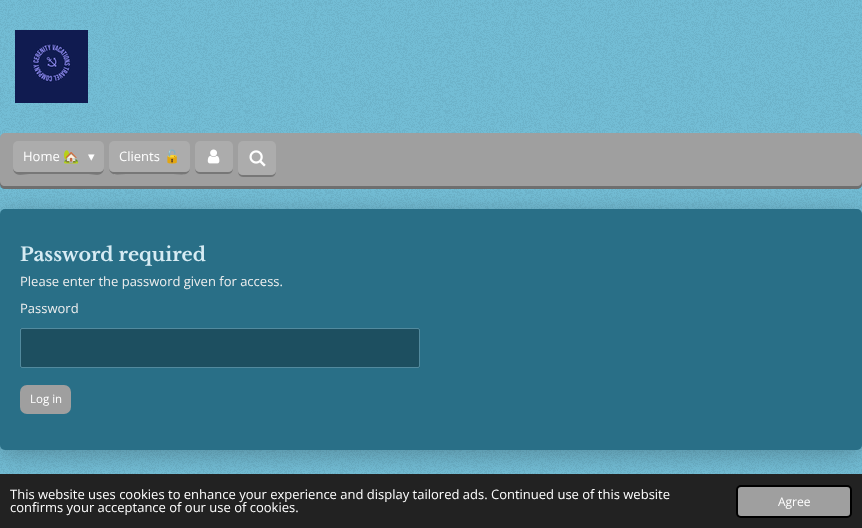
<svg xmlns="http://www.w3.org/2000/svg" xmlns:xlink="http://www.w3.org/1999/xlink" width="862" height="528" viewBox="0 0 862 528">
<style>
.cls-1{font:13px Open Sans;fill:#ffffff}
.cls-2{font:13px Noto Color Emoji;fill:#ffffff}
.cls-3{font:13px DejaVu Sans;fill:#ffffff}
.cls-4{font:bold 19px Libre Baskerville;fill:#d6ebf3}
.cls-5{font:13px Open Sans;fill:#eeeeee}
.cls-6{font:11.5px Open Sans;fill:#ffffff}
.cls-7{font:12px Open Sans;fill:#ffffff}
</style>
<rect width="100%" height="100%" fill="#73bdd5"/>
<image xlink:href="image0.png" x="0" y="0" width="862" height="474"/>
<image xlink:href="image1.png" x="15" y="30" width="73" height="73"/>
<rect fill="#9f9f9f" x="0" y="133" width="862" height="56" rx="5"/>
<path fill="#000000" fill-opacity="0.3" d="M0 181V184C0 187 2 189 5 189H857C860 189 862 187 862 184V181C862 184 860 186 857 186H5C2 186 0 184 0 181Z"/>
<path fill="#777777" d="M13 167C13 178 23 174 32 174H86C94 174 104 178 104 167C104 170 102 172 99 172H18C15 172 13 170 13 167Z"/>
<rect fill="#acacac" x="13" y="141" width="91" height="31" rx="5"/>
<path fill="#777777" d="M109 167C109 177 118 174 126 174H173C181 174 190 177 190 167C190 170 188 172 185 172H114C111 172 109 170 109 167Z"/>
<rect fill="#acacac" x="109" y="141" width="81" height="31" rx="5"/>
<path fill="#777777" d="M195 167C195 174 198 174 204.5 174H223.5C230 174 233 174 233 167C233 170 231 172 228 172H200C197 172 195 170 195 167Z"/>
<rect fill="#acacac" x="195" y="141" width="38" height="31" rx="5"/>
<image xlink:href="image2.png" x="207" y="149" width="13" height="15"/>
<rect fill="#000000" fill-opacity="0.25" filter="blur(12.5px)" x="0" y="214" width="862" height="241" rx="5"/>
<path fill="#777777" d="M238 170C238 177 241 177 247.5 177H266.5C273 177 276 177 276 170C276 173 274 175 271 175H243C240 175 238 173 238 170Z"/>
<rect fill="#acacac" x="238" y="141" width="38" height="34" rx="5"/>
<image xlink:href="image3.png" x="249" y="150" width="17" height="17"/>
<rect fill="#296f87" x="0" y="209" width="862" height="241" rx="5"/>
<rect fill="#1d4f60" x="20" y="328" width="400" height="40" rx="2"/>
<rect fill="none" stroke="#88c6db" stroke-opacity="0.5" x="20.5" y="328.5" width="399" height="39" rx="1.5"/>
<rect fill="#9f9f9f" x="20" y="385" width="51" height="29" rx="7"/>
<rect fill="#222222" x="0" y="474" width="862" height="54"/>
<rect fill="#9f9f9f" stroke="#000000" stroke-width="2" x="737" y="486" width="114" height="31" rx="4"/>
<text class="cls-1" x="23" y="161">Home</text>
<text class="cls-2" x="63" y="161">🏡</text>
<text class="cls-3" x="88" y="161">▾</text>
<text class="cls-1" x="119" y="161">Clients</text>
<text class="cls-2" x="164" y="161">🔓</text>
<text class="cls-4" x="20" y="261">Password required</text>
<text class="cls-5" x="20" y="286">Please enter the password given for access.</text>
<text class="cls-5" x="20" y="313">Password</text>
<text class="cls-6" x="30" y="403">Log in</text>
<text class="cls-1"><tspan x="10" y="499">This website uses cookies to enhance your experience and display tailored ads. Continued use of this website</tspan><tspan x="10" y="512">confirms your acceptance of our use of cookies.</tspan></text>
<text class="cls-7" x="778" y="506">Agree</text>
</svg>
